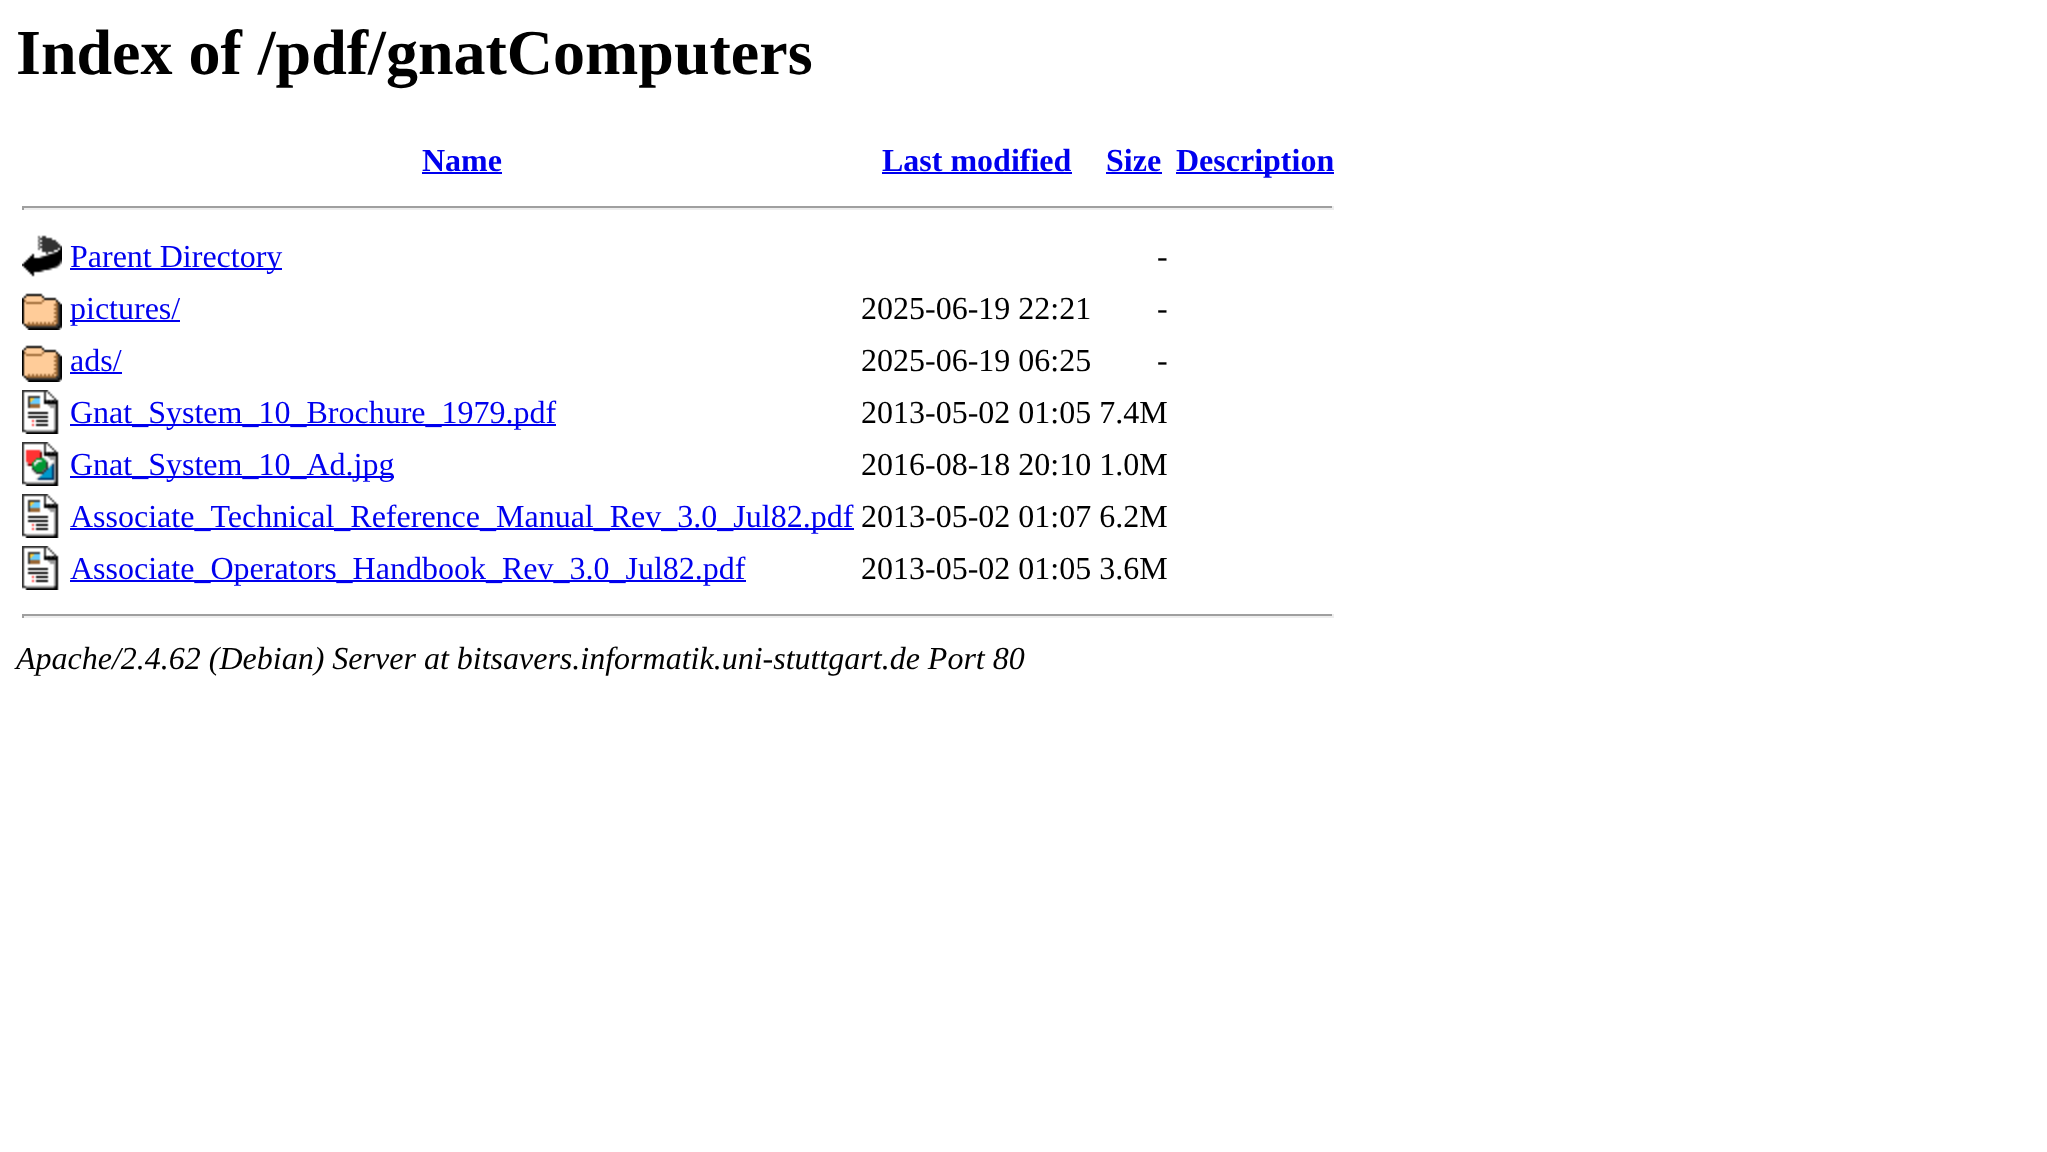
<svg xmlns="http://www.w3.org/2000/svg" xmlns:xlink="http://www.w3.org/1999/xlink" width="2047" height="1152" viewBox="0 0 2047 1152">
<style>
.cls-1{font:bold 64px Liberation Serif;fill:#000000}
.cls-2{font:bold 32px Liberation Serif;fill:#0000ee}
.cls-3{font:32px Liberation Serif;fill:#0000ee}
.cls-4{font:32px Liberation Serif;fill:#000000}
.cls-5{font:italic 32px Liberation Serif;fill:#000000}
</style>
<rect width="100%" height="100%" fill="#ffffff"/>
<rect fill="#0000ee" x="422" y="172" width="80" height="2"/>
<rect fill="#0000ee" x="882" y="172" width="190" height="2"/>
<rect fill="#0000ee" x="1106" y="172" width="56" height="2"/>
<rect fill="#0000ee" x="1176" y="172" width="158" height="2"/>
<rect fill="#9f9f9f" x="22" y="206" width="1312" height="2"/>
<rect fill="#eeeeee" x="1332" y="206" width="2" height="4"/>
<rect fill="#eeeeee" x="22" y="208" width="1312" height="2"/>
<rect fill="#9f9f9f" x="22" y="206" width="2" height="4"/>
<image xlink:href="image0.png" x="22" y="235" width="40" height="42"/>
<rect fill="#0000ee" x="70" y="268" width="212" height="2"/>
<image xlink:href="image1.png" x="22" y="293" width="40" height="37"/>
<rect fill="#0000ee" x="70" y="320" width="110" height="2"/>
<image xlink:href="image1.png" x="22" y="345" width="40" height="37"/>
<rect fill="#0000ee" x="70" y="372" width="52" height="2"/>
<image xlink:href="image2.png" x="22" y="390" width="37" height="44"/>
<rect fill="#0000ee" x="70" y="424" width="486" height="2"/>
<image xlink:href="image3.png" x="22" y="442" width="37" height="44"/>
<rect fill="#0000ee" x="70" y="476" width="324" height="2"/>
<image xlink:href="image2.png" x="22" y="494" width="37" height="44"/>
<rect fill="#0000ee" x="70" y="528" width="784" height="2"/>
<image xlink:href="image2.png" x="22" y="546" width="37" height="44"/>
<rect fill="#0000ee" x="70" y="580" width="676" height="2"/>
<rect fill="#9f9f9f" x="22" y="614" width="1312" height="2"/>
<rect fill="#eeeeee" x="1332" y="614" width="2" height="4"/>
<rect fill="#eeeeee" x="22" y="616" width="1312" height="2"/>
<rect fill="#9f9f9f" x="22" y="614" width="2" height="4"/>
<text class="cls-1" x="16" y="74">Index of /pdf/gnatComputers</text>
<text class="cls-2" x="422" y="171">Name</text>
<text class="cls-2" x="882" y="171">Last modified</text>
<text class="cls-2" x="1106" y="171">Size</text>
<text class="cls-2" x="1176" y="171">Description</text>
<text class="cls-3" x="70" y="267">Parent Directory</text>
<text class="cls-4" x="1157" y="267">-</text>
<text class="cls-3" x="70" y="319">pictures/</text>
<text class="cls-4" x="861" y="319">2025-06-19 22:21</text>
<text class="cls-4" x="1157" y="319">-</text>
<text class="cls-3" x="70" y="371">ads/</text>
<text class="cls-4" x="861" y="371">2025-06-19 06:25</text>
<text class="cls-4" x="1157" y="371">-</text>
<text class="cls-3" x="70" y="423">Gnat_System_10_Brochure_1979.pdf</text>
<text class="cls-4" x="861" y="423">2013-05-02 01:05 7.4M</text>
<text class="cls-3" x="70" y="475">Gnat_System_10_Ad.jpg</text>
<text class="cls-4" x="861" y="475">2016-08-18 20:10 1.0M</text>
<text class="cls-3" x="70" y="527">Associate_Technical_Reference_Manual_Rev_3.0_Jul82.pdf</text>
<text class="cls-4" x="861" y="527">2013-05-02 01:07 6.2M</text>
<text class="cls-3" x="70" y="579">Associate_Operators_Handbook_Rev_3.0_Jul82.pdf</text>
<text class="cls-4" x="861" y="579">2013-05-02 01:05 3.6M</text>
<text class="cls-5" x="16" y="669">Apache/2.4.62 (Debian) Server at bitsavers.informatik.uni-stuttgart.de Port 80</text>
</svg>
